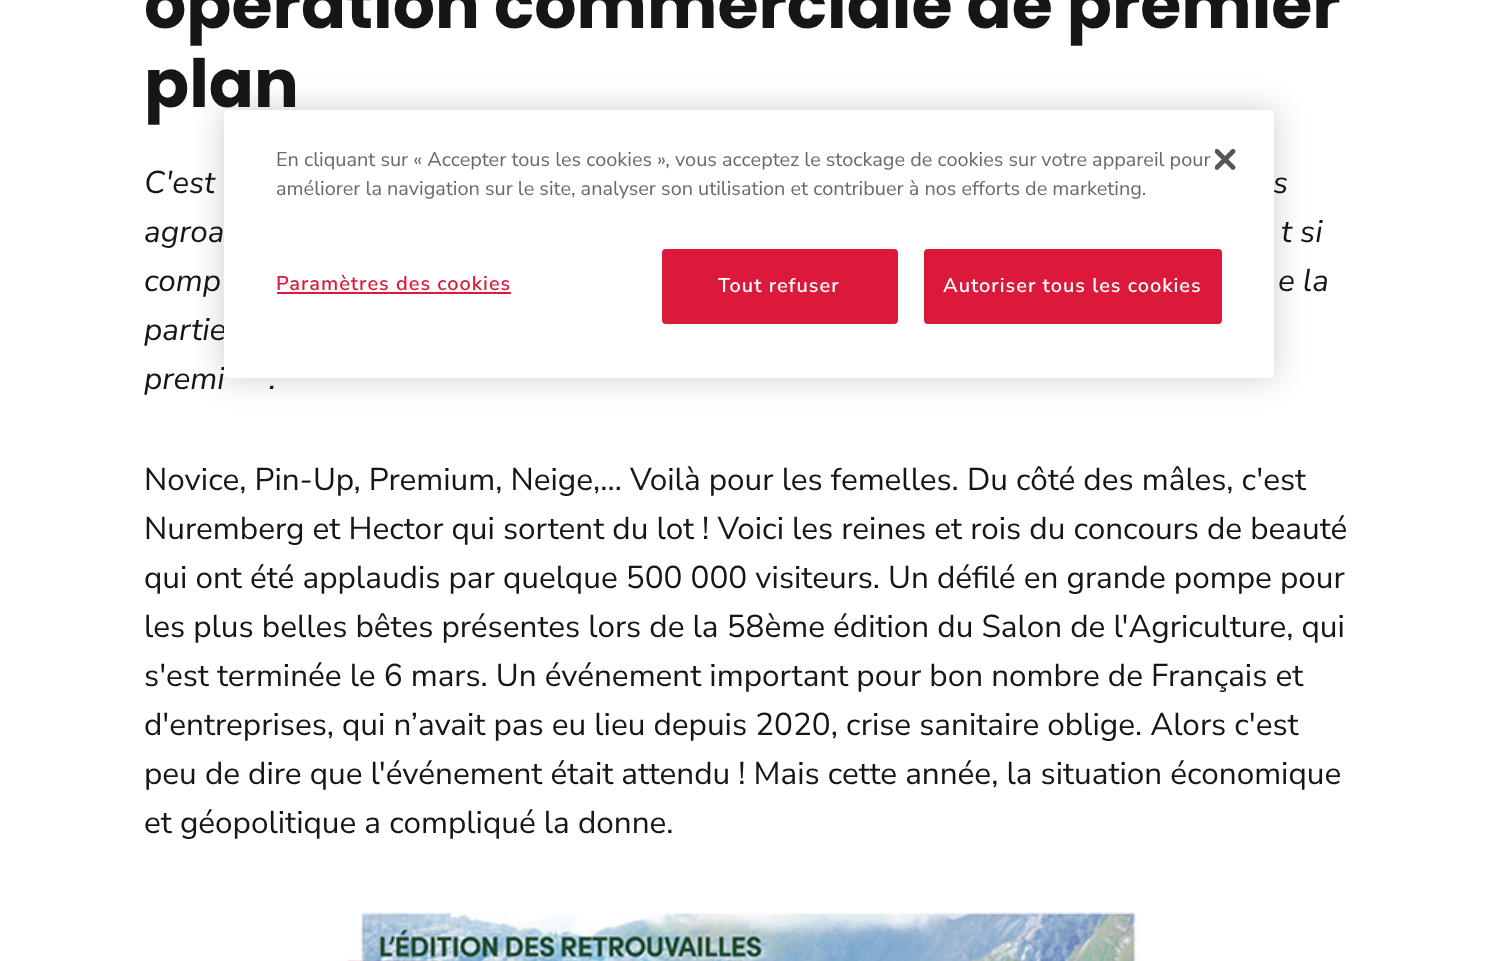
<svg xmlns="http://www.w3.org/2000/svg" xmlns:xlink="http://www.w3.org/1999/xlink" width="1495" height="961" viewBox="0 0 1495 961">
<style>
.cls-1{font:bold 66.5px Poppins;fill:#161616}
.cls-2{font:italic 31.5px Nunito Sans;fill:#161616}
.cls-3{font:31.5px Nunito Sans;fill:#161616}
.cls-4{font:19.9px Nunito Sans;fill:#696969}
.cls-5{font:600 19.9px Nunito Sans;letter-spacing:1px;fill:#dd193b}
.cls-6{font:600 19.9px Nunito Sans;letter-spacing:1px;fill:#ffffff}
</style>
<rect width="100%" height="100%" fill="#ffffff"/>
<image xlink:href="image0.png" x="348" y="912" width="793" height="49"/>
<rect fill="#000000" fill-opacity="0.2" filter="blur(16px)" x="224" y="110" width="1050" height="268" rx="4"/>
<text class="cls-1"><tspan x="144" y="28">opération commerciale de premier</tspan><tspan x="144" y="107">plan</tspan></text>
<text class="cls-2" x="144" y="193">C'est</text>
<text class="cls-2" x="1273" y="193">s</text>
<text class="cls-2" x="144" y="242">agroa</text>
<text class="cls-2" x="1281" y="242">t si</text>
<text class="cls-2" x="144" y="291">comp</text>
<text class="cls-2" x="1278" y="291">e la</text>
<text class="cls-2"><tspan x="144" y="340">partie</tspan><tspan x="144" y="389">premi</tspan></text>
<text class="cls-2" x="269" y="389">.</text>
<text class="cls-3"><tspan x="144" y="490">Novice, Pin-Up, Premium, Neige,… Voilà pour les femelles. Du côté des mâles, c'est</tspan><tspan x="144" y="539">Nuremberg et Hector qui sortent du lot ! Voici les reines et rois du concours de beauté</tspan><tspan x="144" y="588">qui ont été applaudis par quelque 500 000 visiteurs. Un défilé en grande pompe pour</tspan><tspan x="144" y="637">les plus belles bêtes présentes lors de la 58ème édition du Salon de l'Agriculture, qui</tspan><tspan x="144" y="686">s'est terminée le 6 mars. Un événement important pour bon nombre de Français et</tspan><tspan x="144" y="735">d'entreprises, qui n’avait pas eu lieu depuis 2020, crise sanitaire oblige. Alors c'est</tspan><tspan x="144" y="784">peu de dire que l'événement était attendu ! Mais cette année, la situation économique</tspan><tspan x="144" y="833">et géopolitique a compliqué la donne.</tspan></text>
<rect fill="#ffffff" x="224" y="110" width="1050" height="268" rx="4"/>
<text class="cls-4"><tspan x="276" y="166">En cliquant sur « Accepter tous les cookies », vous acceptez le stockage de cookies sur votre appareil pour</tspan><tspan x="276" y="195">améliorer la navigation sur le site, analyser son utilisation et contribuer à nos efforts de marketing.</tspan></text>
<image xlink:href="image1.png" x="1215" y="149" width="21" height="21"/>
<text class="cls-5" x="276" y="290">Paramètres des cookies</text>
<rect fill="#dd193b" x="277" y="292" width="234" height="2"/>
<rect fill="#dd193b" stroke="#dd193b" stroke-width="2" x="663" y="250" width="234" height="73" rx="3"/>
<text class="cls-6" x="718" y="292">Tout refuser</text>
<rect fill="#dd193b" stroke="#dd193b" stroke-width="2" x="925" y="250" width="296" height="73" rx="3"/>
<text class="cls-6" x="943" y="292">Autoriser tous les cookies</text>
</svg>
